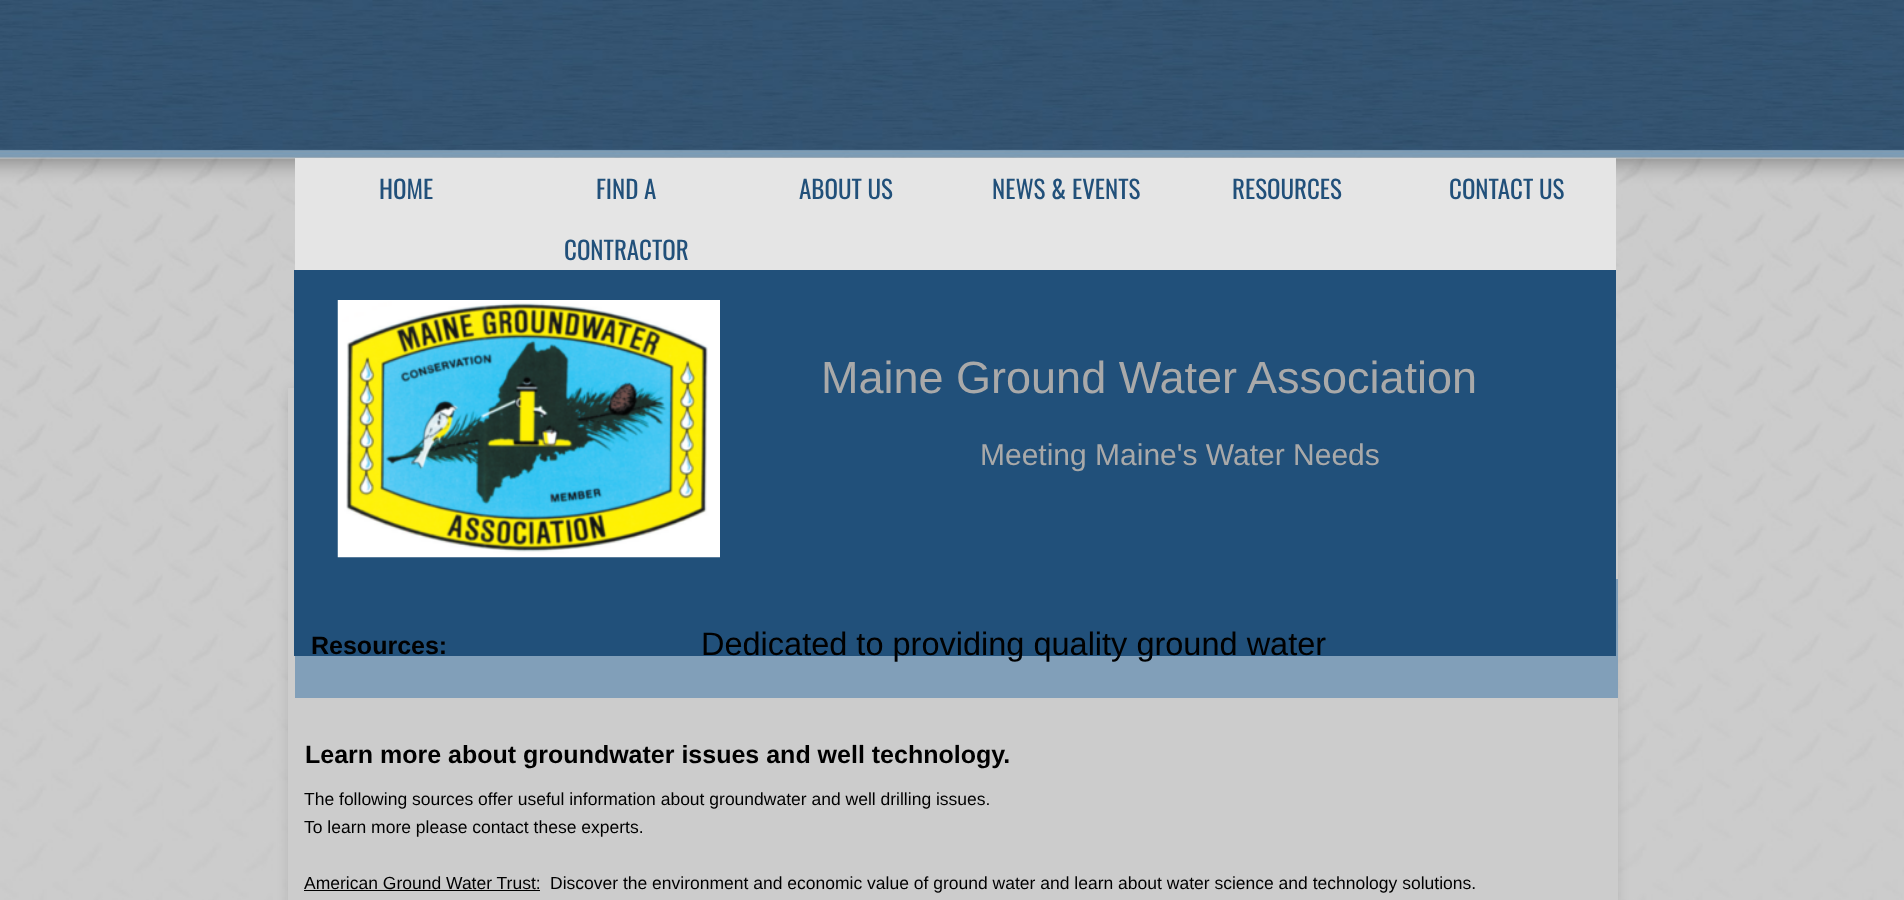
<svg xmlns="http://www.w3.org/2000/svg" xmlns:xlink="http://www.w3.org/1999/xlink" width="1904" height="900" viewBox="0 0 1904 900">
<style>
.cls-1{font:25px Oswald;fill:#21507a}
.cls-2{font:45px Liberation Sans;fill:#a9a9a9}
.cls-3{font:30px Liberation Sans;fill:#a9a9a9}
.cls-4{font:bold 25px Liberation Sans;fill:#000000}
.cls-5{font:32.5px Liberation Sans;fill:#000000}
.cls-6{font:17.5px Liberation Sans;fill:#000000}
</style>
<rect width="100%" height="100%" fill="#ffffff"/>
<image xlink:href="image0.png" x="0" y="0" width="1904" height="900"/>
<rect fill="#000000" fill-opacity="0.1" filter="blur(6px)" x="288" y="388" width="1330" height="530"/>
<rect fill="#cccccc" x="288" y="388" width="1330" height="512"/>
<rect fill="#e5e5e5" x="295" y="158" width="1321" height="112"/>
<rect fill="#819fb9" x="295" y="579" width="1323" height="119"/>
<rect fill="#21507a" x="294" y="270" width="1322" height="386"/>
<image xlink:href="image1.png" x="337" y="300" width="383" height="258"/>
<rect fill="#000000" x="304" y="890" width="236" height="1"/>
<text class="cls-1" x="379" y="199">HOME</text>
<text class="cls-1" x="596" y="199">FIND A</text>
<text class="cls-1" x="564" y="260">CONTRACTOR</text>
<text class="cls-1" x="799" y="199">ABOUT US</text>
<text class="cls-1" x="992" y="199">NEWS &amp; EVENTS</text>
<text class="cls-1" x="1232" y="199">RESOURCES</text>
<text class="cls-1" x="1449" y="199">CONTACT US</text>
<text class="cls-2" x="821" y="393">Maine Ground Water Association</text>
<text class="cls-3" x="980" y="465">Meeting Maine's Water Needs</text>
<text class="cls-4" x="311" y="654">Resources:</text>
<text class="cls-5" x="701" y="655">Dedicated to providing quality ground water</text>
<text class="cls-4" x="305" y="763">Learn more about groundwater issues and well technology.</text>
<text class="cls-6"><tspan x="304" y="805">The following sources offer useful information about groundwater and well drilling issues.</tspan><tspan x="304" y="833">To learn more please contact these experts.</tspan></text>
<text class="cls-6" x="304" y="889">American Ground Water Trust:</text>
<text class="cls-6" x="550" y="889">Discover the environment and economic value of ground water and learn about water science and technology solutions.</text>
</svg>
